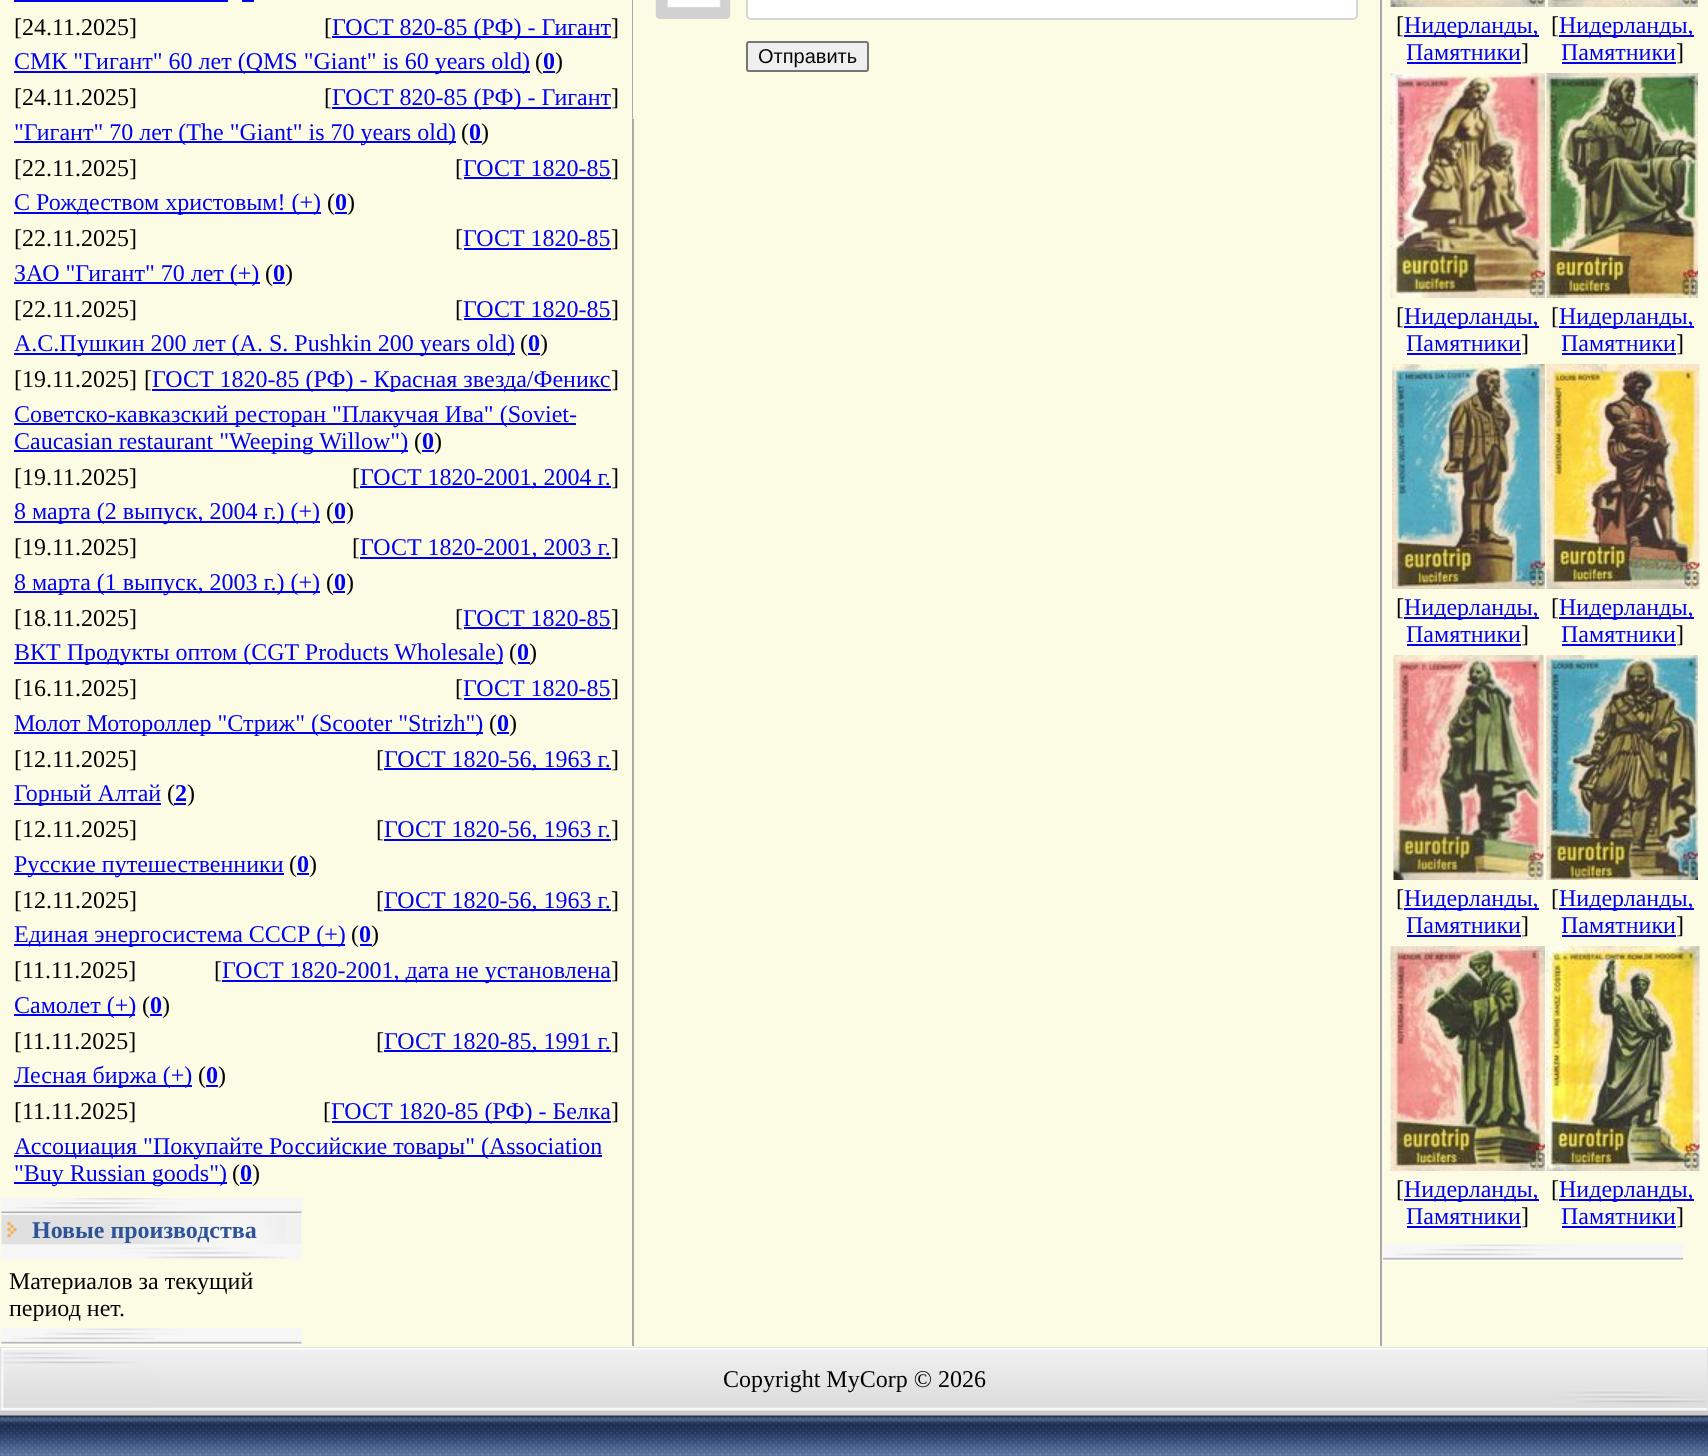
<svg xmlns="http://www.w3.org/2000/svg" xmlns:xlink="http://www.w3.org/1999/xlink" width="1708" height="1456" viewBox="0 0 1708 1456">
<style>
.cls-1{font:24px Liberation Serif;fill:#000000}
.cls-2{font:24px Liberation Serif;fill:#0000ee}
.cls-3{font:bold 24px Liberation Serif;fill:#0000ee}
.cls-4{font:bold 24px Liberation Serif;fill:#2c5497}
.cls-5{font:20px Liberation Sans;fill:#000000}
</style>
<rect width="100%" height="100%" fill="#fbfce3"/>
<rect fill="#0000ee" x="14" y="0" width="214" height="2"/>
<rect fill="#0000ee" x="242" y="0" width="12" height="2"/>
<rect fill="#0000ee" x="332" y="36" width="279" height="2"/>
<rect fill="#0000ee" x="14" y="71" width="516" height="2"/>
<rect fill="#0000ee" x="543" y="71" width="12" height="2"/>
<rect fill="#0000ee" x="332" y="107" width="279" height="2"/>
<rect fill="#0000ee" x="14" y="141" width="442" height="2"/>
<rect fill="#0000ee" x="470" y="141" width="12" height="2"/>
<rect fill="#0000ee" x="464" y="177" width="147" height="2"/>
<rect fill="#0000ee" x="14" y="212" width="307" height="2"/>
<rect fill="#0000ee" x="335" y="212" width="12" height="2"/>
<rect fill="#0000ee" x="464" y="248" width="147" height="2"/>
<rect fill="#0000ee" x="14" y="282" width="246" height="2"/>
<rect fill="#0000ee" x="273" y="282" width="12" height="2"/>
<rect fill="#0000ee" x="464" y="318" width="147" height="2"/>
<rect fill="#0000ee" x="14" y="353" width="501" height="2"/>
<rect fill="#0000ee" x="528" y="353" width="12" height="2"/>
<rect fill="#0000ee" x="152" y="389" width="459" height="2"/>
<rect fill="#0000ee" x="14" y="423" width="562" height="2"/>
<rect fill="#0000ee" x="14" y="450" width="394" height="2"/>
<rect fill="#0000ee" x="422" y="450" width="12" height="2"/>
<rect fill="#0000ee" x="360" y="486" width="251" height="2"/>
<rect fill="#0000ee" x="14" y="521" width="306" height="2"/>
<rect fill="#0000ee" x="333" y="521" width="12" height="2"/>
<rect fill="#0000ee" x="360" y="557" width="251" height="2"/>
<rect fill="#0000ee" x="14" y="591" width="306" height="2"/>
<rect fill="#0000ee" x="333" y="591" width="12" height="2"/>
<rect fill="#0000ee" x="464" y="627" width="147" height="2"/>
<rect fill="#0000ee" x="14" y="662" width="489" height="2"/>
<rect fill="#0000ee" x="518" y="662" width="12" height="2"/>
<rect fill="#0000ee" x="464" y="698" width="147" height="2"/>
<rect fill="#0000ee" x="14" y="732" width="469" height="2"/>
<rect fill="#0000ee" x="497" y="732" width="12" height="2"/>
<rect fill="#0000ee" x="384" y="768" width="227" height="2"/>
<rect fill="#0000ee" x="14" y="803" width="147" height="2"/>
<rect fill="#0000ee" x="174" y="803" width="12" height="2"/>
<rect fill="#0000ee" x="384" y="839" width="227" height="2"/>
<rect fill="#0000ee" x="14" y="873" width="270" height="2"/>
<rect fill="#0000ee" x="297" y="873" width="12" height="2"/>
<rect fill="#0000ee" x="384" y="909" width="227" height="2"/>
<rect fill="#0000ee" x="14" y="944" width="331" height="2"/>
<rect fill="#0000ee" x="360" y="944" width="12" height="2"/>
<rect fill="#0000ee" x="222" y="980" width="389" height="2"/>
<rect fill="#0000ee" x="14" y="1014" width="121" height="2"/>
<rect fill="#0000ee" x="150" y="1014" width="12" height="2"/>
<rect fill="#0000ee" x="384" y="1050" width="227" height="2"/>
<rect fill="#0000ee" x="14" y="1085" width="178" height="2"/>
<rect fill="#0000ee" x="206" y="1085" width="12" height="2"/>
<rect fill="#0000ee" x="332" y="1121" width="279" height="2"/>
<rect fill="#0000ee" x="14" y="1155" width="588" height="2"/>
<rect fill="#0000ee" x="14" y="1182" width="213" height="2"/>
<rect fill="#0000ee" x="240" y="1182" width="12" height="2"/>
<image xlink:href="image1.png" x="1" y="1214" width="301" height="31"/>
<image xlink:href="image0.png" x="1" y="1198" width="301" height="17"/>
<image xlink:href="image2.png" x="1" y="1244" width="301" height="16"/>
<image xlink:href="image3.png" x="1" y="1328" width="301" height="17"/>
<rect fill="#a9a9a9" x="1380" y="0" width="2" height="1346"/>
<rect fill="#a9a9a9" x="632" y="0" width="2" height="1346"/>
<rect fill="#fbfce3" x="633" y="0" width="1" height="119"/>
<image xlink:href="image4.png" x="655" y="0" width="76" height="19"/>
<rect fill="#ffffff" stroke="#d6d6d6" stroke-width="2" x="747" y="-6" width="610" height="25" rx="4"/>
<rect fill="#efefef" stroke="#767676" stroke-width="2" x="747" y="42" width="121" height="29" rx="2"/>
<image xlink:href="image5.png" x="1390" y="0" width="155" height="7"/>
<rect fill="#0000ee" x="1404" y="35" width="135" height="2"/>
<rect fill="#0000ee" x="1407" y="62" width="114" height="2"/>
<image xlink:href="image6.png" x="1548" y="0" width="150" height="7"/>
<rect fill="#0000ee" x="1559" y="35" width="135" height="2"/>
<rect fill="#0000ee" x="1562" y="62" width="114" height="2"/>
<image xlink:href="image7.png" x="1390" y="73" width="155" height="225"/>
<rect fill="#0000ee" x="1404" y="326" width="135" height="2"/>
<rect fill="#0000ee" x="1407" y="353" width="114" height="2"/>
<image xlink:href="image8.png" x="1546" y="73" width="152" height="225"/>
<rect fill="#0000ee" x="1559" y="326" width="135" height="2"/>
<rect fill="#0000ee" x="1562" y="353" width="114" height="2"/>
<image xlink:href="image9.png" x="1392" y="364" width="153" height="225"/>
<rect fill="#0000ee" x="1404" y="617" width="135" height="2"/>
<rect fill="#0000ee" x="1407" y="644" width="114" height="2"/>
<image xlink:href="image10.png" x="1546" y="364" width="154" height="225"/>
<rect fill="#0000ee" x="1559" y="617" width="135" height="2"/>
<rect fill="#0000ee" x="1562" y="644" width="114" height="2"/>
<image xlink:href="image11.png" x="1393" y="655" width="151" height="225"/>
<rect fill="#0000ee" x="1404" y="908" width="135" height="2"/>
<rect fill="#0000ee" x="1407" y="935" width="114" height="2"/>
<image xlink:href="image12.png" x="1546" y="655" width="152" height="225"/>
<rect fill="#0000ee" x="1559" y="908" width="135" height="2"/>
<rect fill="#0000ee" x="1562" y="935" width="114" height="2"/>
<image xlink:href="image13.png" x="1390" y="946" width="155" height="225"/>
<rect fill="#0000ee" x="1404" y="1199" width="135" height="2"/>
<rect fill="#0000ee" x="1407" y="1226" width="114" height="2"/>
<image xlink:href="image14.png" x="1546" y="946" width="154" height="225"/>
<rect fill="#0000ee" x="1559" y="1199" width="135" height="2"/>
<rect fill="#0000ee" x="1562" y="1226" width="114" height="2"/>
<image xlink:href="image15.png" x="1383" y="1244" width="300" height="17"/>
<rect fill="none" stroke="#e1e1e1" stroke-width="2" x="1" y="1348" width="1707" height="63"/>
<image xlink:href="image16.png" x="1" y="1348" width="1706" height="62"/>
<image xlink:href="image17.png" x="1" y="1348" width="155" height="62"/>
<image xlink:href="image18.png" x="1553" y="1390" width="154" height="20"/>
<image xlink:href="image19.png" x="0" y="1411" width="1708" height="45"/>
<text class="cls-1" x="14" y="35">[24.11.2025]</text>
<text class="cls-1" x="324" y="35">[</text>
<text class="cls-2" x="332" y="35">ГОСТ 820-85 (РФ) - Гигант</text>
<text class="cls-1" x="611" y="35">]</text>
<text class="cls-2" x="14" y="69">СМК "Гигант" 60 лет (QMS "Giant" is 60 years old)</text>
<text class="cls-1" x="535" y="69">(</text>
<text class="cls-3" x="543" y="69">0</text>
<text class="cls-1" x="555" y="69">)</text>
<text class="cls-1" x="14" y="105">[24.11.2025]</text>
<text class="cls-1" x="324" y="105">[</text>
<text class="cls-2" x="332" y="105">ГОСТ 820-85 (РФ) - Гигант</text>
<text class="cls-1" x="611" y="105">]</text>
<text class="cls-2" x="14" y="140">"Гигант" 70 лет (The "Giant" is 70 years old)</text>
<text class="cls-1" x="461" y="140">(</text>
<text class="cls-3" x="469" y="140">0</text>
<text class="cls-1" x="481" y="140">)</text>
<text class="cls-1" x="14" y="176">[22.11.2025]</text>
<text class="cls-1" x="455" y="176">[</text>
<text class="cls-2" x="463" y="176">ГОСТ 1820-85</text>
<text class="cls-1" x="611" y="176">]</text>
<text class="cls-2" x="14" y="210">С Рождеством христовым! (+)</text>
<text class="cls-1" x="327" y="210">(</text>
<text class="cls-3" x="335" y="210">0</text>
<text class="cls-1" x="347" y="210">)</text>
<text class="cls-1" x="14" y="246">[22.11.2025]</text>
<text class="cls-1" x="455" y="246">[</text>
<text class="cls-2" x="463" y="246">ГОСТ 1820-85</text>
<text class="cls-1" x="611" y="246">]</text>
<text class="cls-2" x="14" y="281">ЗАО "Гигант" 70 лет (+)</text>
<text class="cls-1" x="265" y="281">(</text>
<text class="cls-3" x="273" y="281">0</text>
<text class="cls-1" x="285" y="281">)</text>
<text class="cls-1" x="14" y="317">[22.11.2025]</text>
<text class="cls-1" x="455" y="317">[</text>
<text class="cls-2" x="463" y="317">ГОСТ 1820-85</text>
<text class="cls-1" x="611" y="317">]</text>
<text class="cls-2" x="14" y="351">А.С.Пушкин 200 лет (A. S. Pushkin 200 years old)</text>
<text class="cls-1" x="520" y="351">(</text>
<text class="cls-3" x="528" y="351">0</text>
<text class="cls-1" x="540" y="351">)</text>
<text class="cls-1" x="14" y="387">[19.11.2025]</text>
<text class="cls-1" x="144" y="387">[</text>
<text class="cls-2" x="152" y="387">ГОСТ 1820-85 (РФ) - Красная звезда/Феникс</text>
<text class="cls-1" x="611" y="387">]</text>
<text class="cls-2"><tspan x="14" y="422">Советско-кавказский ресторан "Плакучая Ива" (Soviet-</tspan><tspan x="14" y="449">Caucasian restaurant "Weeping Willow")</tspan></text>
<text class="cls-1" x="414" y="449">(</text>
<text class="cls-3" x="422" y="449">0</text>
<text class="cls-1" x="434" y="449">)</text>
<text class="cls-1" x="14" y="485">[19.11.2025]</text>
<text class="cls-1" x="352" y="485">[</text>
<text class="cls-2" x="360" y="485">ГОСТ 1820-2001, 2004 г.</text>
<text class="cls-1" x="611" y="485">]</text>
<text class="cls-2" x="14" y="519">8 марта (2 выпуск, 2004 г.) (+)</text>
<text class="cls-1" x="326" y="519">(</text>
<text class="cls-3" x="334" y="519">0</text>
<text class="cls-1" x="346" y="519">)</text>
<text class="cls-1" x="14" y="555">[19.11.2025]</text>
<text class="cls-1" x="352" y="555">[</text>
<text class="cls-2" x="360" y="555">ГОСТ 1820-2001, 2003 г.</text>
<text class="cls-1" x="611" y="555">]</text>
<text class="cls-2" x="14" y="590">8 марта (1 выпуск, 2003 г.) (+)</text>
<text class="cls-1" x="326" y="590">(</text>
<text class="cls-3" x="334" y="590">0</text>
<text class="cls-1" x="346" y="590">)</text>
<text class="cls-1" x="14" y="626">[18.11.2025]</text>
<text class="cls-1" x="455" y="626">[</text>
<text class="cls-2" x="463" y="626">ГОСТ 1820-85</text>
<text class="cls-1" x="611" y="626">]</text>
<text class="cls-2" x="14" y="660">ВКТ Продукты оптом (CGT Products Wholesale)</text>
<text class="cls-1" x="509" y="660">(</text>
<text class="cls-3" x="517" y="660">0</text>
<text class="cls-1" x="529" y="660">)</text>
<text class="cls-1" x="14" y="696">[16.11.2025]</text>
<text class="cls-1" x="455" y="696">[</text>
<text class="cls-2" x="463" y="696">ГОСТ 1820-85</text>
<text class="cls-1" x="611" y="696">]</text>
<text class="cls-2" x="14" y="731">Молот Мотороллер "Стриж" (Scooter "Strizh")</text>
<text class="cls-1" x="489" y="731">(</text>
<text class="cls-3" x="497" y="731">0</text>
<text class="cls-1" x="509" y="731">)</text>
<text class="cls-1" x="14" y="767">[12.11.2025]</text>
<text class="cls-1" x="376" y="767">[</text>
<text class="cls-2" x="384" y="767">ГОСТ 1820-56, 1963 г.</text>
<text class="cls-1" x="611" y="767">]</text>
<text class="cls-2" x="14" y="801">Горный Алтай</text>
<text class="cls-1" x="167" y="801">(</text>
<text class="cls-3" x="175" y="801">2</text>
<text class="cls-1" x="187" y="801">)</text>
<text class="cls-1" x="14" y="837">[12.11.2025]</text>
<text class="cls-1" x="376" y="837">[</text>
<text class="cls-2" x="384" y="837">ГОСТ 1820-56, 1963 г.</text>
<text class="cls-1" x="611" y="837">]</text>
<text class="cls-2" x="14" y="872">Русские путешественники</text>
<text class="cls-1" x="289" y="872">(</text>
<text class="cls-3" x="297" y="872">0</text>
<text class="cls-1" x="309" y="872">)</text>
<text class="cls-1" x="14" y="908">[12.11.2025]</text>
<text class="cls-1" x="376" y="908">[</text>
<text class="cls-2" x="384" y="908">ГОСТ 1820-56, 1963 г.</text>
<text class="cls-1" x="611" y="908">]</text>
<text class="cls-2" x="14" y="942">Единая энергосистема СССР (+)</text>
<text class="cls-1" x="351" y="942">(</text>
<text class="cls-3" x="359" y="942">0</text>
<text class="cls-1" x="371" y="942">)</text>
<text class="cls-1" x="14" y="978">[11.11.2025]</text>
<text class="cls-1" x="214" y="978">[</text>
<text class="cls-2" x="222" y="978">ГОСТ 1820-2001, дата не установлена</text>
<text class="cls-1" x="611" y="978">]</text>
<text class="cls-2" x="14" y="1013">Самолет (+)</text>
<text class="cls-1" x="142" y="1013">(</text>
<text class="cls-3" x="150" y="1013">0</text>
<text class="cls-1" x="162" y="1013">)</text>
<text class="cls-1" x="14" y="1049">[11.11.2025]</text>
<text class="cls-1" x="376" y="1049">[</text>
<text class="cls-2" x="384" y="1049">ГОСТ 1820-85, 1991 г.</text>
<text class="cls-1" x="611" y="1049">]</text>
<text class="cls-2" x="14" y="1083">Лесная биржа (+)</text>
<text class="cls-1" x="198" y="1083">(</text>
<text class="cls-3" x="206" y="1083">0</text>
<text class="cls-1" x="218" y="1083">)</text>
<text class="cls-1" x="14" y="1119">[11.11.2025]</text>
<text class="cls-1" x="323" y="1119">[</text>
<text class="cls-2" x="331" y="1119">ГОСТ 1820-85 (РФ) - Белка</text>
<text class="cls-1" x="611" y="1119">]</text>
<text class="cls-2"><tspan x="14" y="1154">Ассоциация "Покупайте Российские товары" (Association</tspan><tspan x="14" y="1181">"Buy Russian goods")</tspan></text>
<text class="cls-1" x="232" y="1181">(</text>
<text class="cls-3" x="240" y="1181">0</text>
<text class="cls-1" x="252" y="1181">)</text>
<text class="cls-4" x="32" y="1238">Новые производства</text>
<text class="cls-1"><tspan x="9" y="1289">Материалов за текущий</tspan><tspan x="9" y="1316">период нет.</tspan></text>
<text class="cls-5" x="758" y="63">Отправить</text>
<text class="cls-1" x="1396" y="33">[</text>
<text class="cls-2" x="1404" y="33">Нидерланды,</text>
<text class="cls-2" x="1406" y="60">Памятники</text>
<text class="cls-1" x="1521" y="60">]</text>
<text class="cls-1" x="1551" y="33">[</text>
<text class="cls-2" x="1559" y="33">Нидерланды,</text>
<text class="cls-2" x="1561" y="60">Памятники</text>
<text class="cls-1" x="1676" y="60">]</text>
<text class="cls-1" x="1396" y="324">[</text>
<text class="cls-2" x="1404" y="324">Нидерланды,</text>
<text class="cls-2" x="1406" y="351">Памятники</text>
<text class="cls-1" x="1521" y="351">]</text>
<text class="cls-1" x="1551" y="324">[</text>
<text class="cls-2" x="1559" y="324">Нидерланды,</text>
<text class="cls-2" x="1561" y="351">Памятники</text>
<text class="cls-1" x="1676" y="351">]</text>
<text class="cls-1" x="1396" y="615">[</text>
<text class="cls-2" x="1404" y="615">Нидерланды,</text>
<text class="cls-2" x="1406" y="642">Памятники</text>
<text class="cls-1" x="1521" y="642">]</text>
<text class="cls-1" x="1551" y="615">[</text>
<text class="cls-2" x="1559" y="615">Нидерланды,</text>
<text class="cls-2" x="1561" y="642">Памятники</text>
<text class="cls-1" x="1676" y="642">]</text>
<text class="cls-1" x="1396" y="906">[</text>
<text class="cls-2" x="1404" y="906">Нидерланды,</text>
<text class="cls-2" x="1406" y="933">Памятники</text>
<text class="cls-1" x="1521" y="933">]</text>
<text class="cls-1" x="1551" y="906">[</text>
<text class="cls-2" x="1559" y="906">Нидерланды,</text>
<text class="cls-2" x="1561" y="933">Памятники</text>
<text class="cls-1" x="1676" y="933">]</text>
<text class="cls-1" x="1396" y="1197">[</text>
<text class="cls-2" x="1404" y="1197">Нидерланды,</text>
<text class="cls-2" x="1406" y="1224">Памятники</text>
<text class="cls-1" x="1521" y="1224">]</text>
<text class="cls-1" x="1551" y="1197">[</text>
<text class="cls-2" x="1559" y="1197">Нидерланды,</text>
<text class="cls-2" x="1561" y="1224">Памятники</text>
<text class="cls-1" x="1676" y="1224">]</text>
<text class="cls-1" x="723" y="1387">Copyright MyCorp © 2026</text>
</svg>
